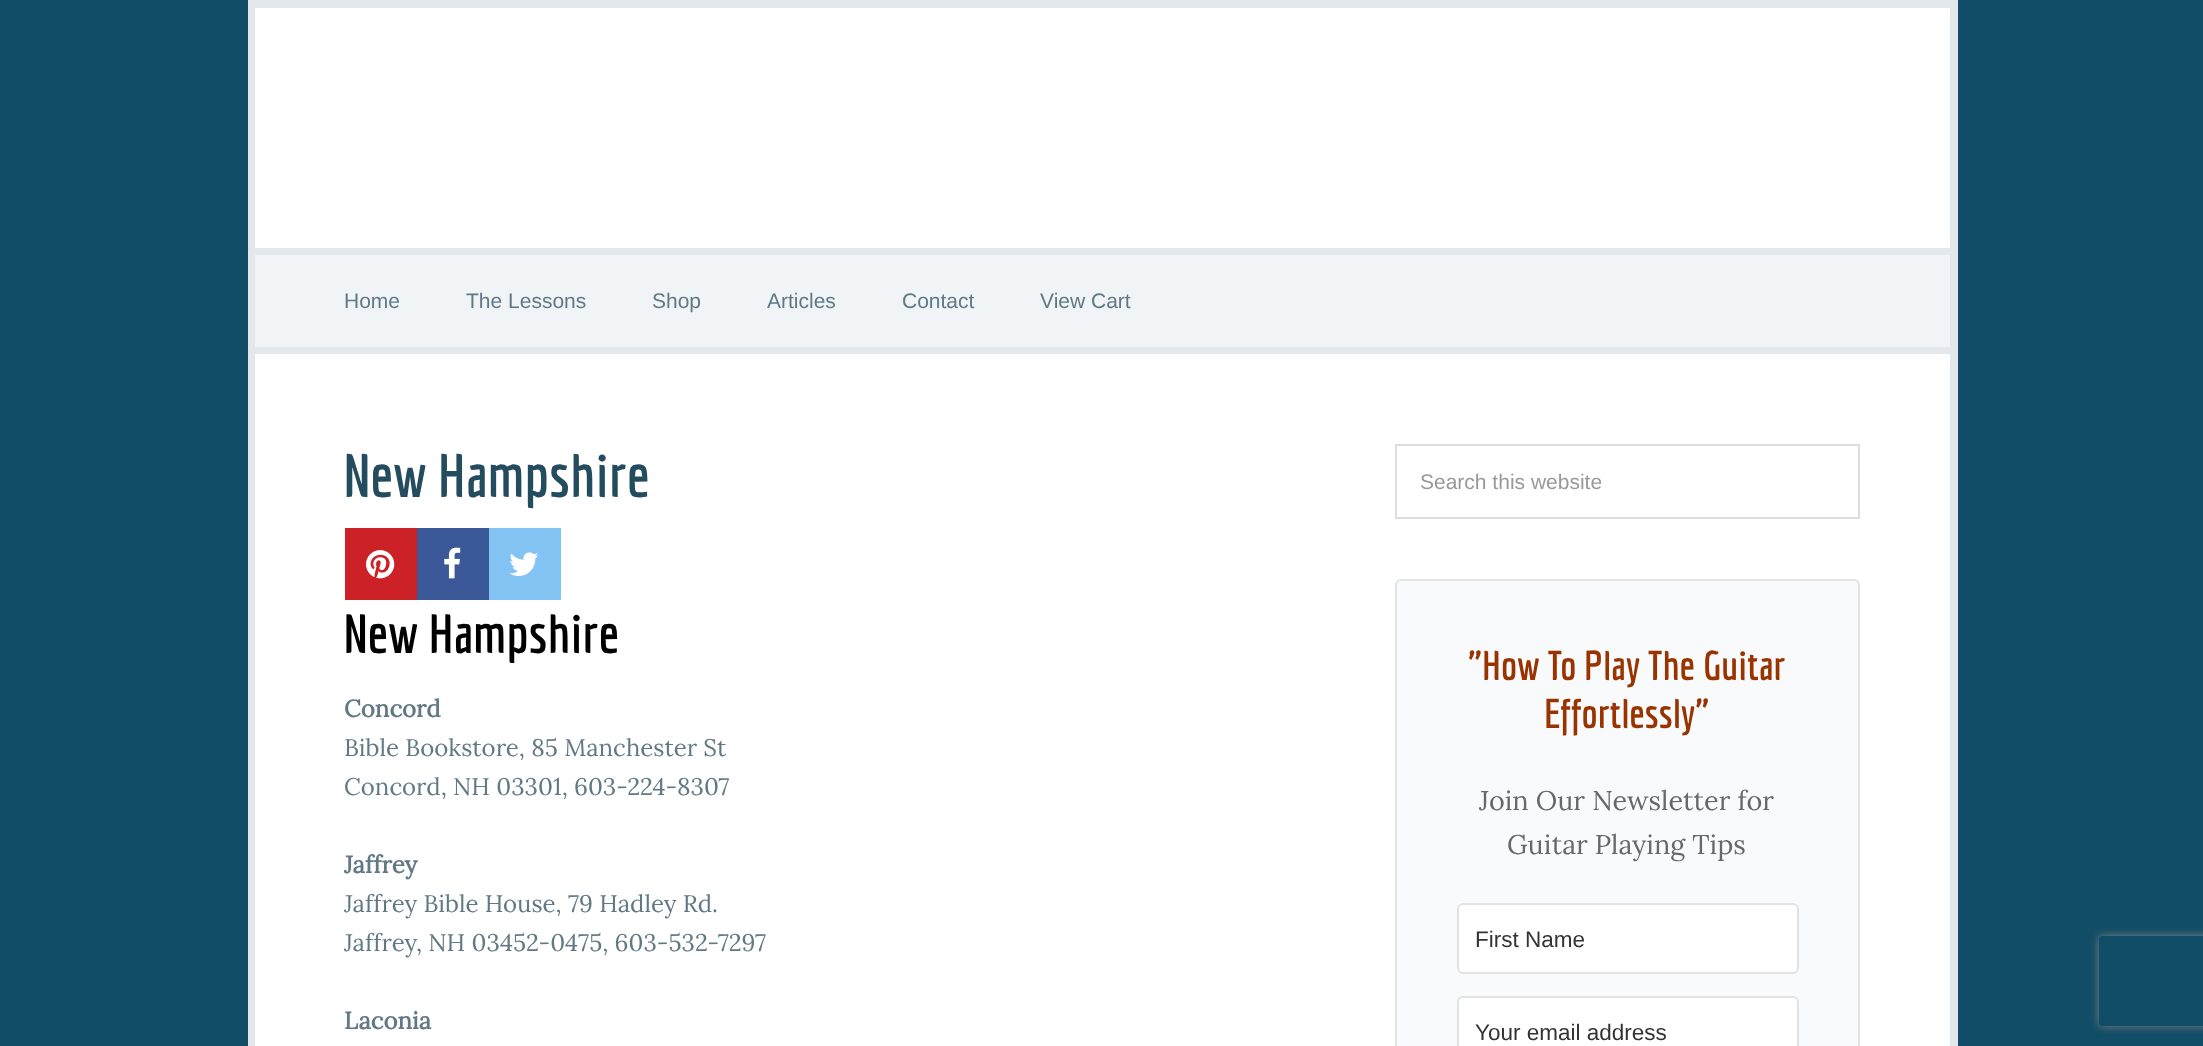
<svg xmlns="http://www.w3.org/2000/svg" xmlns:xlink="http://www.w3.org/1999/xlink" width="2203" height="1046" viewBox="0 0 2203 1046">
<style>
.cls-1{font:21px Liberation Sans;fill:#617984}
.cls-2{font:bold 60px Economica;fill:#244c5f}
.cls-3{font:bold 54px Economica;fill:#000000}
.cls-4{font:bold 24px Lora;fill:#617984}
.cls-5{font:24px Lora;fill:#617984}
.cls-6{font:21px Liberation Sans;fill:#999999}
.cls-7{font:bold 40.5px Economica;fill:#993300}
.cls-8{font:27px Lora;fill:#686868}
.cls-9{font:22.5px Liberation Sans;fill:#333333}
</style>
<defs>
<clipPath id="clip1"><path d="M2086 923H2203V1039H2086ZM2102 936H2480C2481.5 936 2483 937.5 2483 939V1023C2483 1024.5 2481.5 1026 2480 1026H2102C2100.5 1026 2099 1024.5 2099 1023V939C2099 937.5 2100.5 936 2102 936Z" clip-rule="evenodd"/></clipPath>
</defs>
<rect width="100%" height="100%" fill="#114d67"/>
<rect fill="#e2e8eb" x="248" y="0" width="1710" height="1046"/>
<rect fill="#ffffff" x="255" y="8" width="1695" height="240"/>
<rect fill="#f0f4f6" x="255" y="255" width="1695" height="92"/>
<rect fill="#ffffff" x="255" y="354" width="1695" height="692"/>
<rect fill="#cc2127" x="345" y="528" width="72" height="72"/>
<image xlink:href="image0.png" x="366" y="550" width="29" height="29"/>
<rect fill="#3b5998" x="417" y="528" width="72" height="72"/>
<image xlink:href="image1.png" x="444" y="547" width="17" height="32"/>
<rect fill="#83c3f3" x="489" y="528" width="72" height="72"/>
<image xlink:href="image2.png" x="509" y="552" width="30" height="24"/>
<rect fill="none" stroke="#dddddd" stroke-width="2" x="1396" y="445" width="463" height="73"/>
<rect fill="#f9fafb" stroke="#e3e3e3" stroke-width="2" x="1396" y="580" width="463" height="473" rx="5"/>
<rect fill="#ffffff" stroke="#e3e3e3" stroke-width="2" x="1458" y="904" width="340" height="69" rx="5"/>
<rect fill="#ffffff" stroke="#e3e3e3" stroke-width="2" x="1458" y="997" width="340" height="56" rx="5"/>
<g clip-path="url(#clip1)">
<rect fill="#808080" filter="blur(4px)" x="2099" y="936" width="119" height="90" rx="3"/>
</g>
<text class="cls-1" x="344" y="308">Home</text>
<text class="cls-1" x="466" y="308">The Lessons</text>
<text class="cls-1" x="652" y="308">Shop</text>
<text class="cls-1" x="767" y="308">Articles</text>
<text class="cls-1" x="902" y="308">Contact</text>
<text class="cls-1" x="1040" y="308">View Cart</text>
<text class="cls-2" x="344" y="497">New Hampshire</text>
<text class="cls-3" x="344" y="653">New Hampshire</text>
<text class="cls-4" x="344" y="717">Concord</text>
<text class="cls-5"><tspan x="344" y="756">Bible Bookstore, 85 Manchester St</tspan><tspan x="344" y="795">Concord, NH 03301, 603-224-8307</tspan></text>
<text class="cls-4" x="344" y="873">Jaffrey</text>
<text class="cls-5"><tspan x="344" y="912">Jaffrey Bible House, 79 Hadley Rd.</tspan><tspan x="344" y="951">Jaffrey, NH 03452-0475, 603-532-7297</tspan></text>
<text class="cls-4" x="344" y="1029">Laconia</text>
<text class="cls-6" x="1420" y="489">Search this website</text>
<text class="cls-7" x="1468" y="680">"How To Play The Guitar</text>
<text class="cls-7" x="1544" y="728">Effortlessly"</text>
<text class="cls-8" x="1479" y="810">Join Our Newsletter for</text>
<text class="cls-8" x="1507" y="854">Guitar Playing Tips</text>
<text class="cls-9" x="1475" y="947">First Name</text>
<text class="cls-9" x="1475" y="1040">Your email address</text>
</svg>
